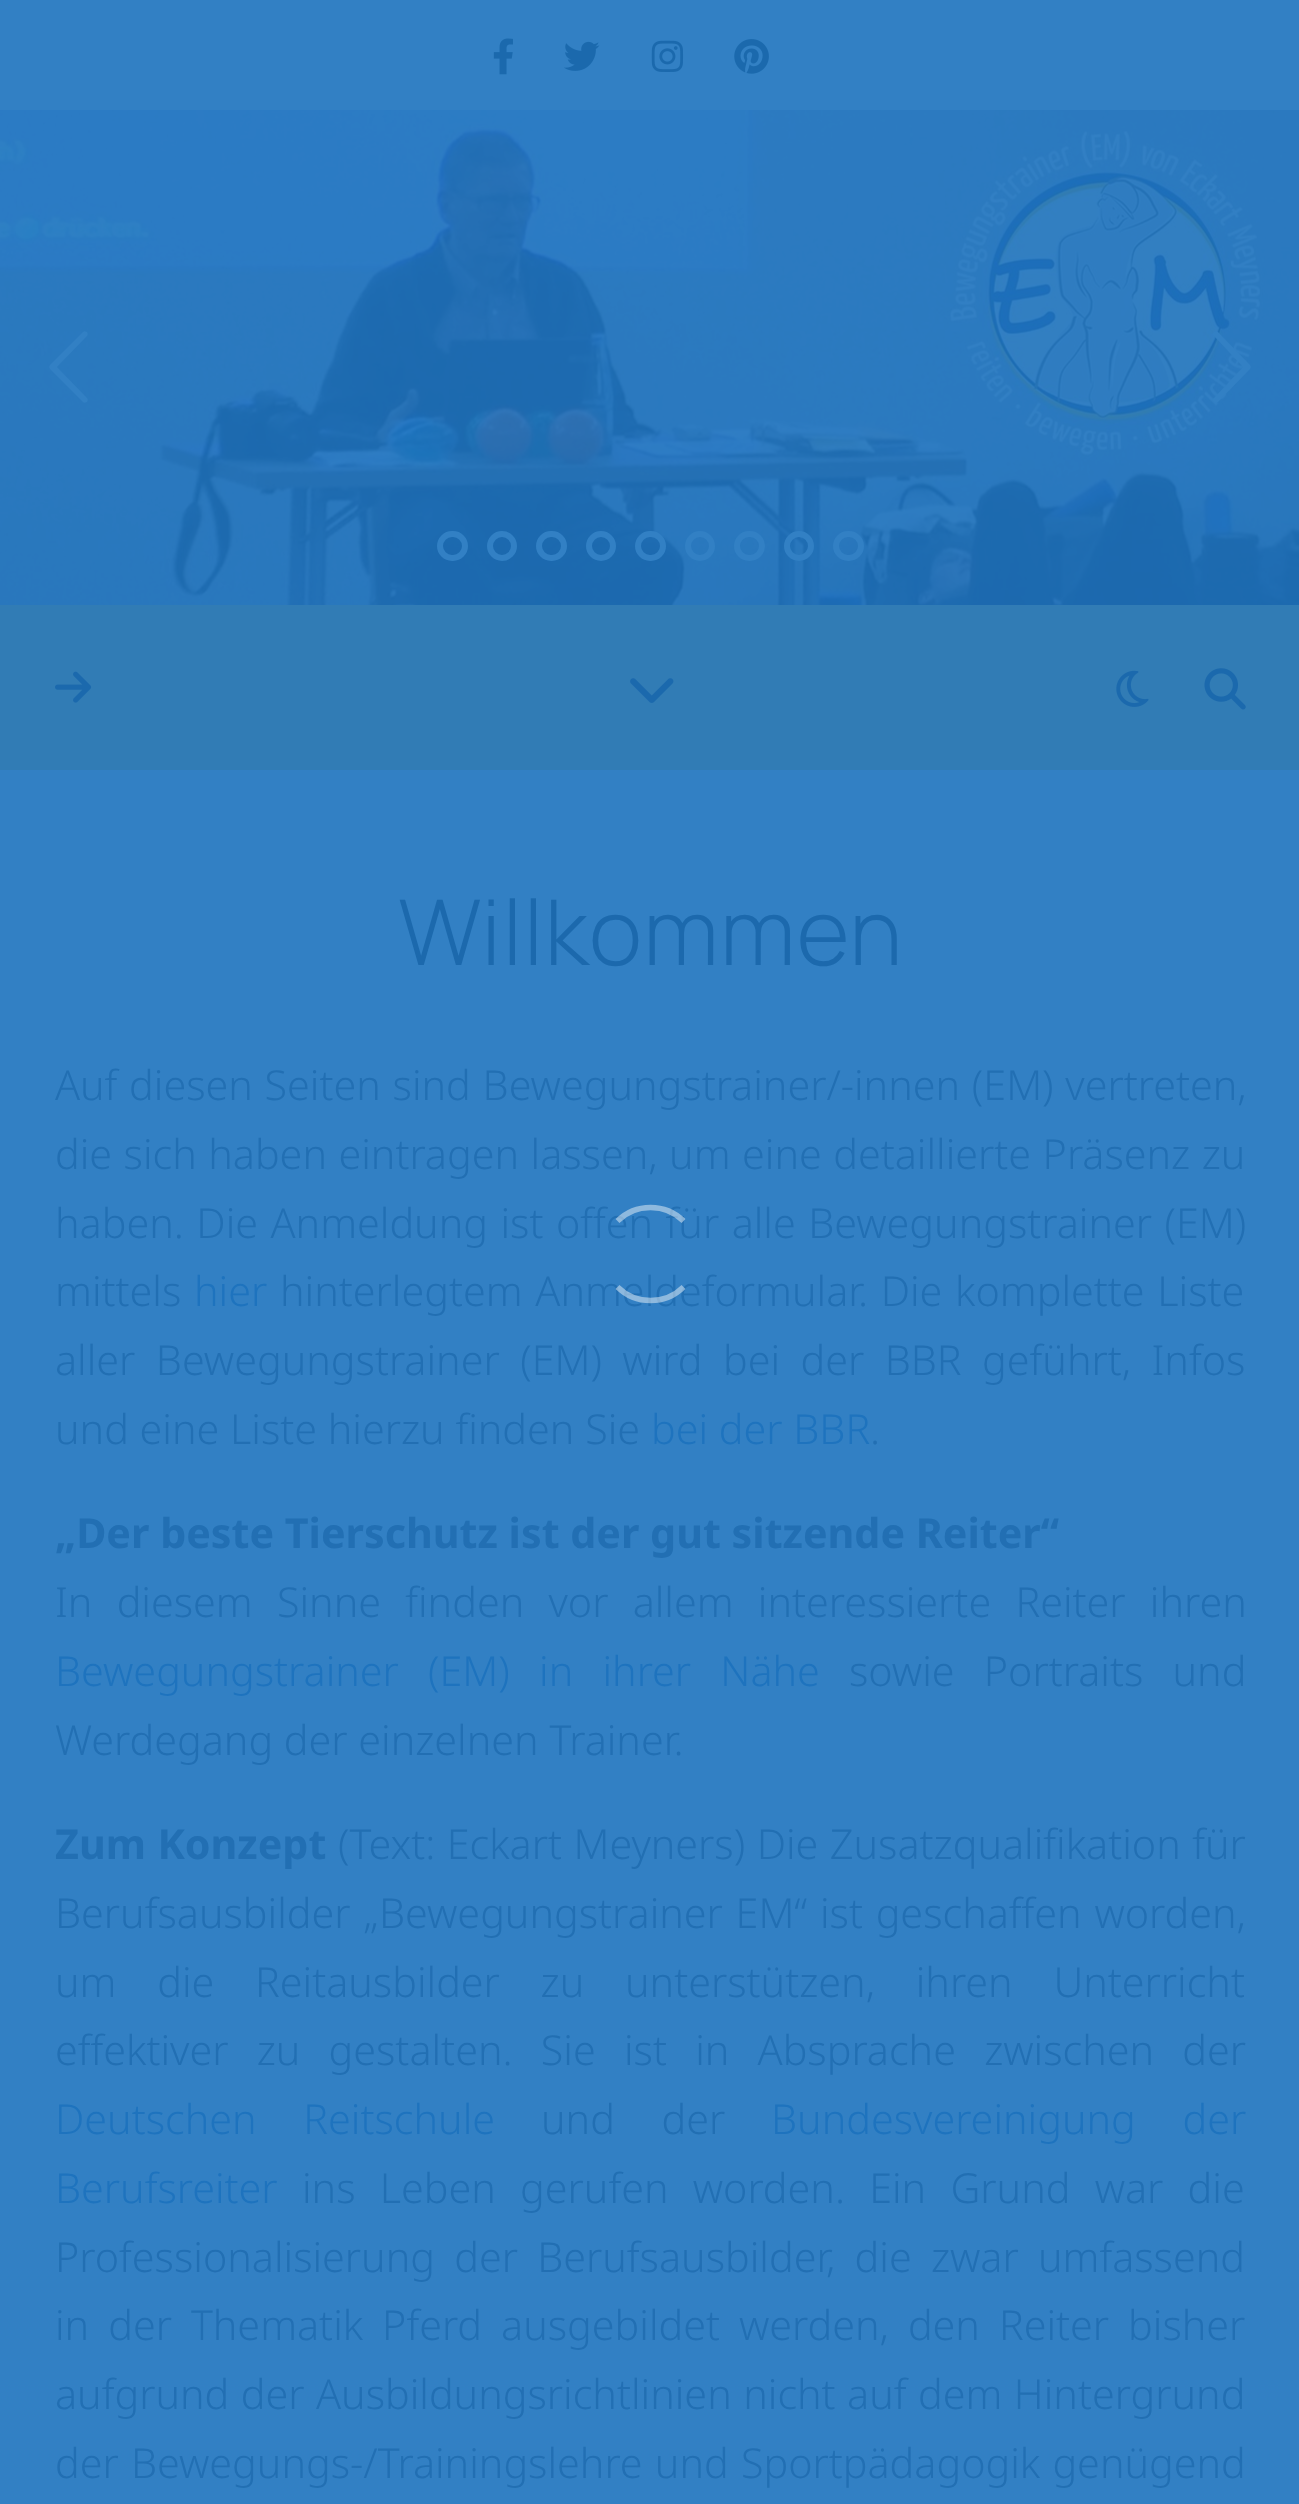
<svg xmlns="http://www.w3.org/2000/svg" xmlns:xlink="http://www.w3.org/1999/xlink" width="1299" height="2504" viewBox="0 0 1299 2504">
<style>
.cls-1{font:300 90.75px Manrope;letter-spacing:1.4px;fill:#1c69ad}
.cls-2{font:300 41.25px Noto Sans;fill:#226fb3}
.cls-3{font:300 41.25px 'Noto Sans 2';fill:#226fb3}
.cls-4{font:300 41.25px 'Noto Sans 2';fill:#1e73be}
.cls-5{font:bold 41.25px Noto Sans;fill:#226fb3}
</style>
<rect width="100%" height="100%" fill="#3280c4"/>
<image xlink:href="image0.png" x="493" y="38" width="20" height="37"/>
<image xlink:href="image1.png" x="564" y="41" width="36" height="30"/>
<image xlink:href="image2.png" x="651" y="40" width="33" height="32"/>
<image xlink:href="image3.png" x="734" y="39" width="35" height="35"/>
<image xlink:href="image4.png" x="0" y="110" width="1299" height="495"/>
<path fill="#3280c4" d="M87 398C88 399 88 400 87 402C85 403 84 403 83 402L50 369C49 368 49 366 50 365L83 332C84 331 85 331 87 332C88 334 88 335 87 336L57 367Z"/>
<path fill="#3280c4" d="M1214 398L1243 367L1214 336C1212 335 1212 334 1214 332C1215 331 1217 331 1218 332L1250 365C1251 366 1251 368 1250 369L1218 402C1217 403 1215 403 1214 402C1212 400 1212 399 1214 398Z"/>
<rect fill="none" stroke="#3280c4" stroke-width="6" x="440" y="534" width="25" height="24" rx="12"/>
<circle fill="none" stroke="#3280c4" stroke-width="6" cx="502" cy="546" r="12"/>
<rect fill="none" stroke="#3280c4" stroke-width="6" x="539" y="534" width="25" height="24" rx="12"/>
<circle fill="none" stroke="#3280c4" stroke-width="6" cx="601" cy="546" r="12"/>
<rect fill="none" stroke="#3280c4" stroke-width="6" x="638" y="534" width="25" height="24" rx="12"/>
<circle fill="none" stroke="#3280c4" stroke-width="6" cx="700" cy="546" r="12"/>
<rect fill="none" stroke="#3280c4" stroke-width="6" x="737" y="534" width="25" height="24" rx="12"/>
<circle fill="none" stroke="#3280c4" stroke-width="6" cx="799" cy="546" r="12"/>
<rect fill="none" stroke="#3280c4" stroke-width="6" x="836" y="534" width="25" height="24" rx="12"/>
<rect fill="#317cb5" x="0" y="605" width="1299" height="165"/>
<image xlink:href="image5.png" x="55" y="671" width="37" height="32"/>
<image xlink:href="image6.png" x="630" y="678" width="44" height="25"/>
<image xlink:href="image7.png" x="1116" y="670" width="33" height="37"/>
<image xlink:href="image8.png" x="1204" y="668" width="42" height="42"/>
<text class="cls-1" x="398" y="965">Willkommen</text>
<text class="cls-2" x="55" y="1100">A</text>
<text class="cls-3" x="80" y="1100" word-spacing="1">uf diesen Seiten sind Bewegungstrainer/-innen (EM) vertreten,</text>
<text class="cls-3"><tspan x="55" y="1169" word-spacing="0.75">die sich haben eintragen lassen, um eine detaillierte Präsenz zu</tspan><tspan x="55" y="1238" word-spacing="1.75">haben. Die Anmeldung ist offen für alle Bewegungstrainer (EM)</tspan><tspan x="55" y="1306">mittels</tspan></text>
<text class="cls-4" x="194" y="1306">hier</text>
<text class="cls-3" x="280" y="1306" word-spacing="2">hinterlegtem Anmeldeformular. Die komplette Liste</text>
<text class="cls-3"><tspan x="55" y="1375" word-spacing="9.75">aller Bewegungstrainer (EM) wird bei der BBR geführt, Infos</tspan><tspan x="55" y="1444">und eine Liste hierzu finden Sie</tspan></text>
<text class="cls-4" x="651" y="1444">bei der BBR</text>
<text class="cls-3" x="870" y="1444">.</text>
<text class="cls-5" x="55" y="1548">„Der beste Tierschutz ist der gut sitzende Reiter“</text>
<text class="cls-3" x="55" y="1617" word-spacing="13.5">In diesem Sinne finden vor allem interessierte Reiter ihren</text>
<text class="cls-4" x="55" y="1686" word-spacing="18.5">Bewegungstrainer (EM) in ihrer Nähe</text>
<text class="cls-3" x="849" y="1686" word-spacing="18.5">sowie Portraits und</text>
<text class="cls-3" x="55" y="1755">Werdegang der einzelnen Trainer.</text>
<text class="cls-5" x="55" y="1859" word-spacing="0.75">Zum Konzept</text>
<text class="cls-3" x="338" y="1859" word-spacing="0.75">(Text: Eckart Meyners) Die Zusatzqualifikation für</text>
<text class="cls-3"><tspan x="55" y="1928" word-spacing="2">Berufsausbilder „Bewegungstrainer EM“ ist geschaffen worden,</tspan><tspan x="55" y="1997" word-spacing="30">um die Reitausbilder zu unterstützen, ihren Unterricht</tspan><tspan x="55" y="2065" word-spacing="17.5">effektiver zu gestalten. Sie ist in Absprache zwischen der</tspan></text>
<text class="cls-4" x="55" y="2134" word-spacing="36">Deutschen Reitschule</text>
<text class="cls-3" x="541" y="2134" word-spacing="36">und der</text>
<text class="cls-4" x="771" y="2134" word-spacing="36">Bundesvereinigung der</text>
<text class="cls-4" x="55" y="2203">Berufsreiter</text>
<text class="cls-3" x="302" y="2203" word-spacing="13.5">ins Leben gerufen worden. Ein Grund war die</text>
<text class="cls-3"><tspan x="55" y="2272" word-spacing="8.5">Professionalisierung der Berufsausbilder, die zwar umfassend</tspan><tspan x="55" y="2340" word-spacing="8.25">in der Thematik Pferd ausgebildet werden, den Reiter bisher</tspan><tspan x="55" y="2409" word-spacing="0.75">aufgrund der Ausbildungsrichtlinien nicht auf dem Hintergrund</tspan><tspan x="55" y="2478" word-spacing="1.5">der Bewegungs-/Trainingslehre und Sportpädagogik genügend</tspan></text>
<path fill="none" stroke="#ffffff" stroke-opacity="0.45" stroke-width="5.5" d="M617.5 1221C635.5 1203 665.5 1203 683.5 1221"/>
<path fill="none" stroke="#ffffff" stroke-opacity="0.45" stroke-width="5.5" d="M683.5 1287C665.5 1305 635.5 1305 617.5 1287"/>
</svg>
